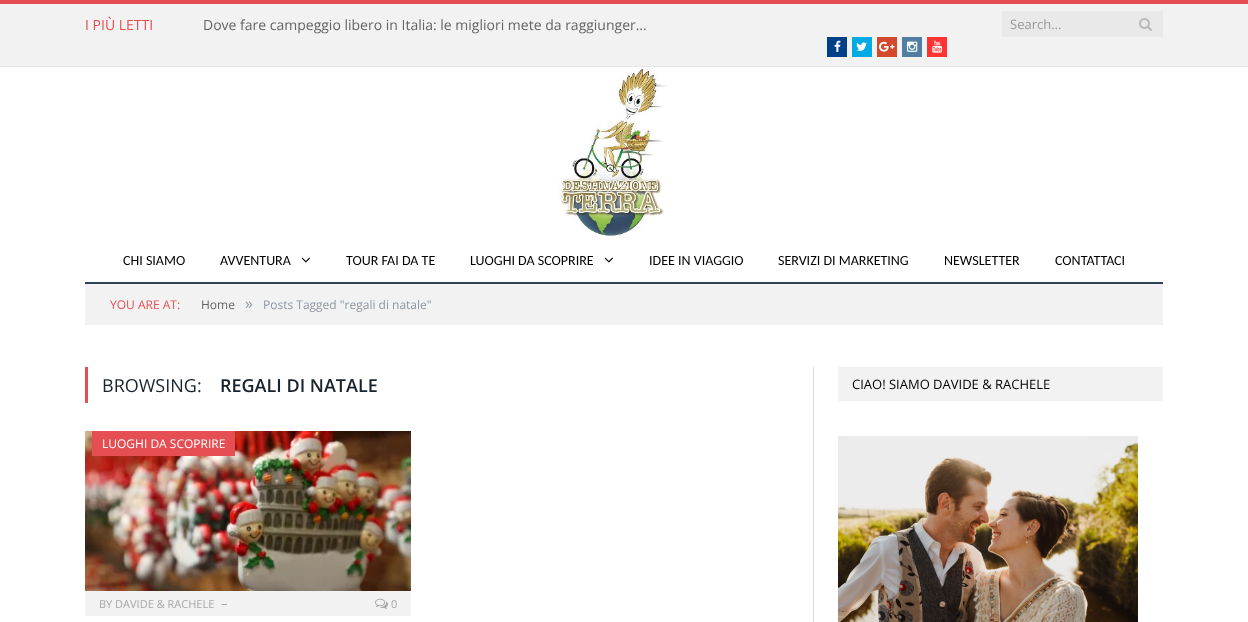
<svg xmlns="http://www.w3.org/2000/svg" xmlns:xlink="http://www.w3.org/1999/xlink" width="1248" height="622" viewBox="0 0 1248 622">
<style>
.cls-1{font:14px Open Sans;fill:#e54e53}
.cls-2{font:14px Open Sans;fill:#656565}
.cls-3{font:13px Open Sans;fill:#999999}
.cls-4{font:14px Carlito;fill:#000000}
.cls-5{font:12px Open Sans;fill:#e54e53}
.cls-6{font:12px Open Sans;fill:#656565}
.cls-7{font:16px Open Sans;fill:#8d97a1}
.cls-8{font:12px Open Sans;fill:#8d97a1}
.cls-9{font:18px Open Sans;fill:#19232d}
.cls-10{font:600 18px Open Sans;fill:#19232d}
.cls-11{font:12px Open Sans;fill:#ffffff}
.cls-12{font:11px Open Sans;fill:#a6a6a6}
.cls-13{font:13px Open Sans;fill:#a6a6a6}
.cls-14{font:13px Open Sans;fill:#000000}
</style>
<rect width="100%" height="100%" fill="#ffffff"/>
<rect fill="#f2f2f2" x="0" y="4" width="1248" height="62"/>
<rect fill="#e54e53" x="0" y="0" width="1248" height="4"/>
<rect fill="#e7e7e7" x="0" y="66" width="1248" height="1"/>
<rect fill="#e9e9e9" x="1002" y="11" width="161" height="26"/>
<image xlink:href="image0.png" x="1139" y="18" width="13" height="13"/>
<rect fill="#004088" x="827" y="37" width="20" height="20"/>
<image xlink:href="image1.png" x="834" y="40" width="7" height="12"/>
<rect fill="#00abe3" x="852" y="37" width="20" height="20"/>
<image xlink:href="image2.png" x="856" y="42" width="11" height="9"/>
<rect fill="#d3492c" x="877" y="37" width="20" height="20"/>
<image xlink:href="image3.png" x="879" y="41" width="16" height="11"/>
<rect fill="#517fa4" x="902" y="37" width="20" height="20"/>
<image xlink:href="image4.png" x="907" y="41" width="11" height="11"/>
<rect fill="#fe3432" x="927" y="37" width="20" height="20"/>
<image xlink:href="image5.png" x="932" y="40" width="11" height="13"/>
<image xlink:href="image6.png" x="559" y="67" width="109" height="171"/>
<rect fill="#2f4154" x="85" y="282" width="1078" height="2"/>
<image xlink:href="image7.png" x="301" y="257" width="9" height="6"/>
<image xlink:href="image7.png" x="604" y="257" width="9" height="6"/>
<rect fill="#f2f2f2" x="85" y="284" width="1078" height="41"/>
<rect fill="#e54e53" x="85" y="367" width="3" height="36"/>
<image xlink:href="image8.png" x="85" y="431" width="326" height="160"/>
<rect fill="#e54e53" x="92" y="431" width="143" height="25"/>
<rect fill="#f2f2f2" x="85" y="591" width="326" height="25"/>
<image xlink:href="image9.png" x="375" y="598" width="13" height="11"/>
<rect fill="#d9d9d9" x="813" y="367" width="1" height="255"/>
<rect fill="#f2f2f2" x="838" y="367" width="325" height="34"/>
<image xlink:href="image10.png" x="838" y="436" width="300" height="186"/>
<text class="cls-1" x="85" y="30">I PIÙ LETTI</text>
<text class="cls-2" x="203" y="30">Dove fare campeggio libero in Italia: le migliori mete da raggiunger…</text>
<text class="cls-3" x="1010" y="29">Search...</text>
<text class="cls-4" x="123" y="265">CHI SIAMO</text>
<text class="cls-4" x="220" y="265">AVVENTURA</text>
<text class="cls-4" x="346" y="265">TOUR FAI DA TE</text>
<text class="cls-4" x="470" y="265">LUOGHI DA SCOPRIRE</text>
<text class="cls-4" x="649" y="265">IDEE IN VIAGGIO</text>
<text class="cls-4" x="778" y="265">SERVIZI DI MARKETING</text>
<text class="cls-4" x="944" y="265">NEWSLETTER</text>
<text class="cls-4" x="1055" y="265">CONTATTACI</text>
<text class="cls-5" x="110" y="309">YOU ARE AT:</text>
<text class="cls-6" x="201" y="309">Home</text>
<text class="cls-7" x="245" y="309">»</text>
<text class="cls-8" x="263" y="309">Posts Tagged "regali di natale"</text>
<text class="cls-9" x="102" y="392">BROWSING:</text>
<text class="cls-10" x="220" y="392">REGALI DI NATALE</text>
<text class="cls-11" x="102" y="448">LUOGHI DA SCOPRIRE</text>
<text class="cls-12" x="99" y="608">BY DAVIDE &amp; RACHELE</text>
<text class="cls-13" x="221" y="608">–</text>
<text class="cls-12" x="391" y="608">0</text>
<text class="cls-14" x="852" y="389">CIAO! SIAMO DAVIDE &amp; RACHELE</text>
</svg>
